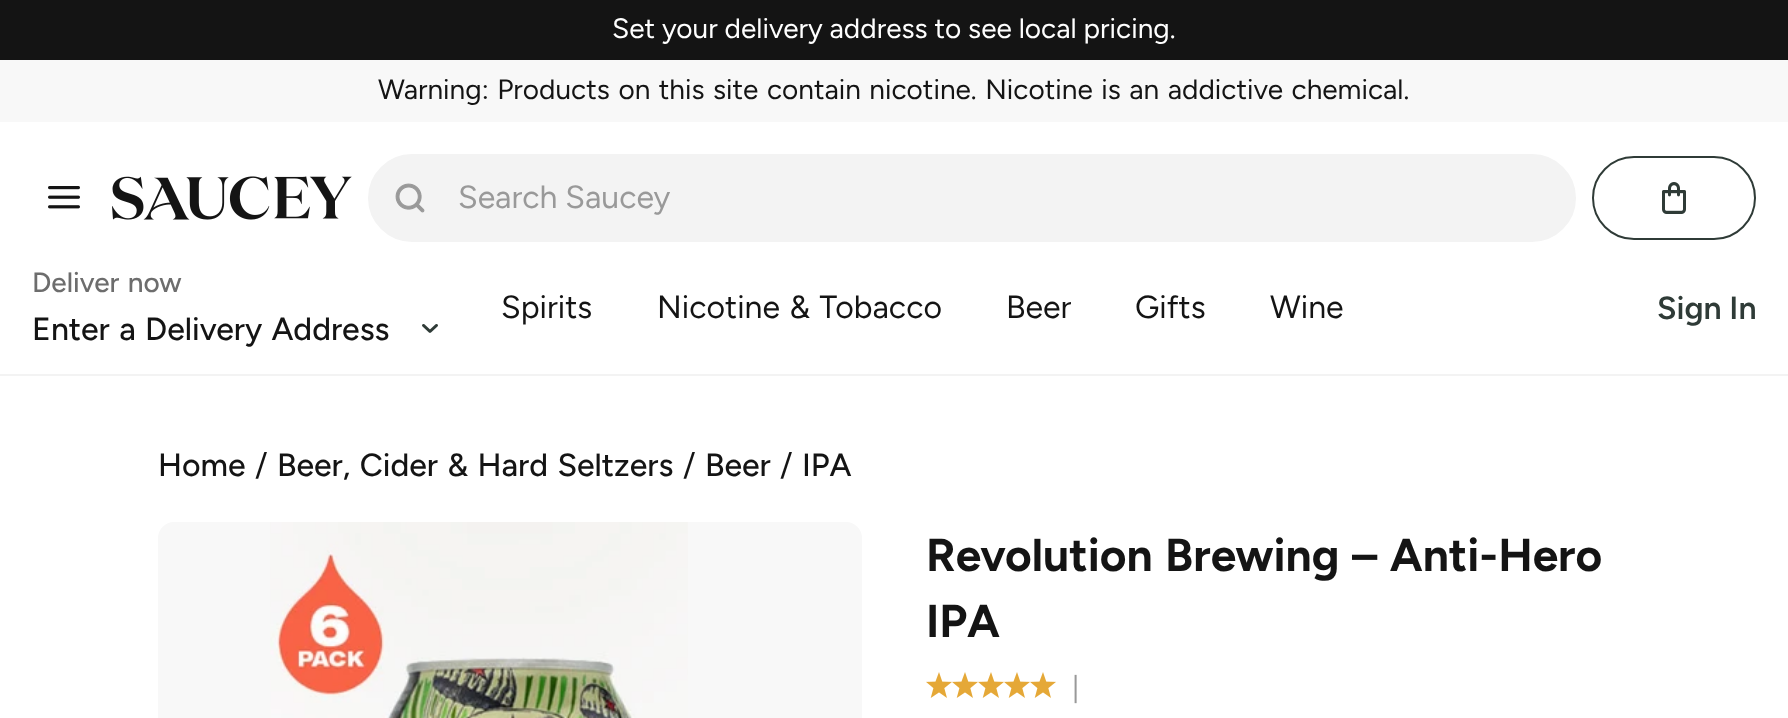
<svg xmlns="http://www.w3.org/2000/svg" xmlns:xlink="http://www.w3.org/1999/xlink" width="1788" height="718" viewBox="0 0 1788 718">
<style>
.cls-1{font:28px Figtree;fill:#ffffff}
.cls-2{font:28px Figtree;fill:#141414}
.cls-3{font:32px Figtree;fill:#999999}
.cls-4{font:500 28px Figtree;fill:#6d6d6d}
.cls-5{font:500 32px Figtree;fill:#141414}
.cls-6{font:32px Figtree;fill:#141414}
.cls-7{font:600 32px Figtree;fill:#2f3b37}
.cls-8{font:bold 46px Figtree;fill:#141414}
.cls-9{font:28px Figtree;fill:#999999}
</style>
<rect width="100%" height="100%" fill="#ffffff"/>
<rect fill="#141414" x="0" y="0" width="1788" height="60"/>
<rect fill="#f8f8f8" x="0" y="60" width="1788" height="62"/>
<rect fill="#f3f3f3" x="0" y="374" width="1788" height="2"/>
<image xlink:href="image0.png" x="48" y="186" width="32" height="23"/>
<image xlink:href="image1.png" x="112" y="176" width="240" height="44"/>
<rect fill="#f3f3f3" stroke="#f3f3f3" stroke-width="2" x="369" y="155" width="1206" height="86" rx="43"/>
<image xlink:href="image2.png" x="395" y="183" width="30" height="30"/>
<rect fill="none" stroke="#2f3b37" stroke-width="2" x="1593" y="157" width="162" height="82" rx="41"/>
<image xlink:href="image3.png" x="1662" y="182" width="24" height="32"/>
<image xlink:href="image4.png" x="422" y="324" width="16" height="9"/>
<rect fill="#f8f8f8" x="158" y="522" width="704" height="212" rx="16"/>
<image xlink:href="image5.png" x="270" y="522" width="418" height="196"/>
<image xlink:href="image6.png" x="926" y="672" width="26" height="26"/>
<image xlink:href="image6.png" x="952" y="672" width="26" height="26"/>
<image xlink:href="image6.png" x="978" y="672" width="26" height="26"/>
<image xlink:href="image6.png" x="1004" y="672" width="26" height="26"/>
<image xlink:href="image6.png" x="1030" y="672" width="26" height="26"/>
<text class="cls-1" x="612" y="38">Set your delivery address to see local pricing.</text>
<text class="cls-2" x="378" y="99" word-spacing="1.6">Warning: Products on this site contain nicotine. Nicotine is an addictive chemical.</text>
<text class="cls-3" x="458" y="208">Search Saucey</text>
<text class="cls-4" x="32" y="292" word-spacing="1.6">Deliver now</text>
<text class="cls-5" x="32" y="340" word-spacing="1.6">Enter a Delivery Address</text>
<text class="cls-6" x="501" y="318">Spirits</text>
<text class="cls-6" x="657" y="318" word-spacing="1.6">Nicotine &amp; Tobacco</text>
<text class="cls-6" x="1006" y="318">Beer</text>
<text class="cls-6" x="1135" y="318">Gifts</text>
<text class="cls-6" x="1270" y="318">Wine</text>
<text class="cls-7" x="1657" y="319">Sign In</text>
<text class="cls-5" x="158" y="476">Home</text>
<text class="cls-6" x="255" y="476">/</text>
<text class="cls-5" x="277" y="476" word-spacing="1.6">Beer, Cider &amp; Hard Seltzers</text>
<text class="cls-6" x="683" y="476">/</text>
<text class="cls-5" x="705" y="476">Beer</text>
<text class="cls-6" x="780" y="476">/</text>
<text class="cls-5" x="802" y="476">IPA</text>
<text class="cls-8" x="926" y="571" word-spacing="1.6">Revolution Brewing</text>
<text class="cls-8" x="1352" y="571" word-spacing="1.6">– Anti-Hero</text>
<text class="cls-8" x="926" y="637">IPA</text>
<text class="cls-9" x="1072" y="697">|</text>
</svg>
